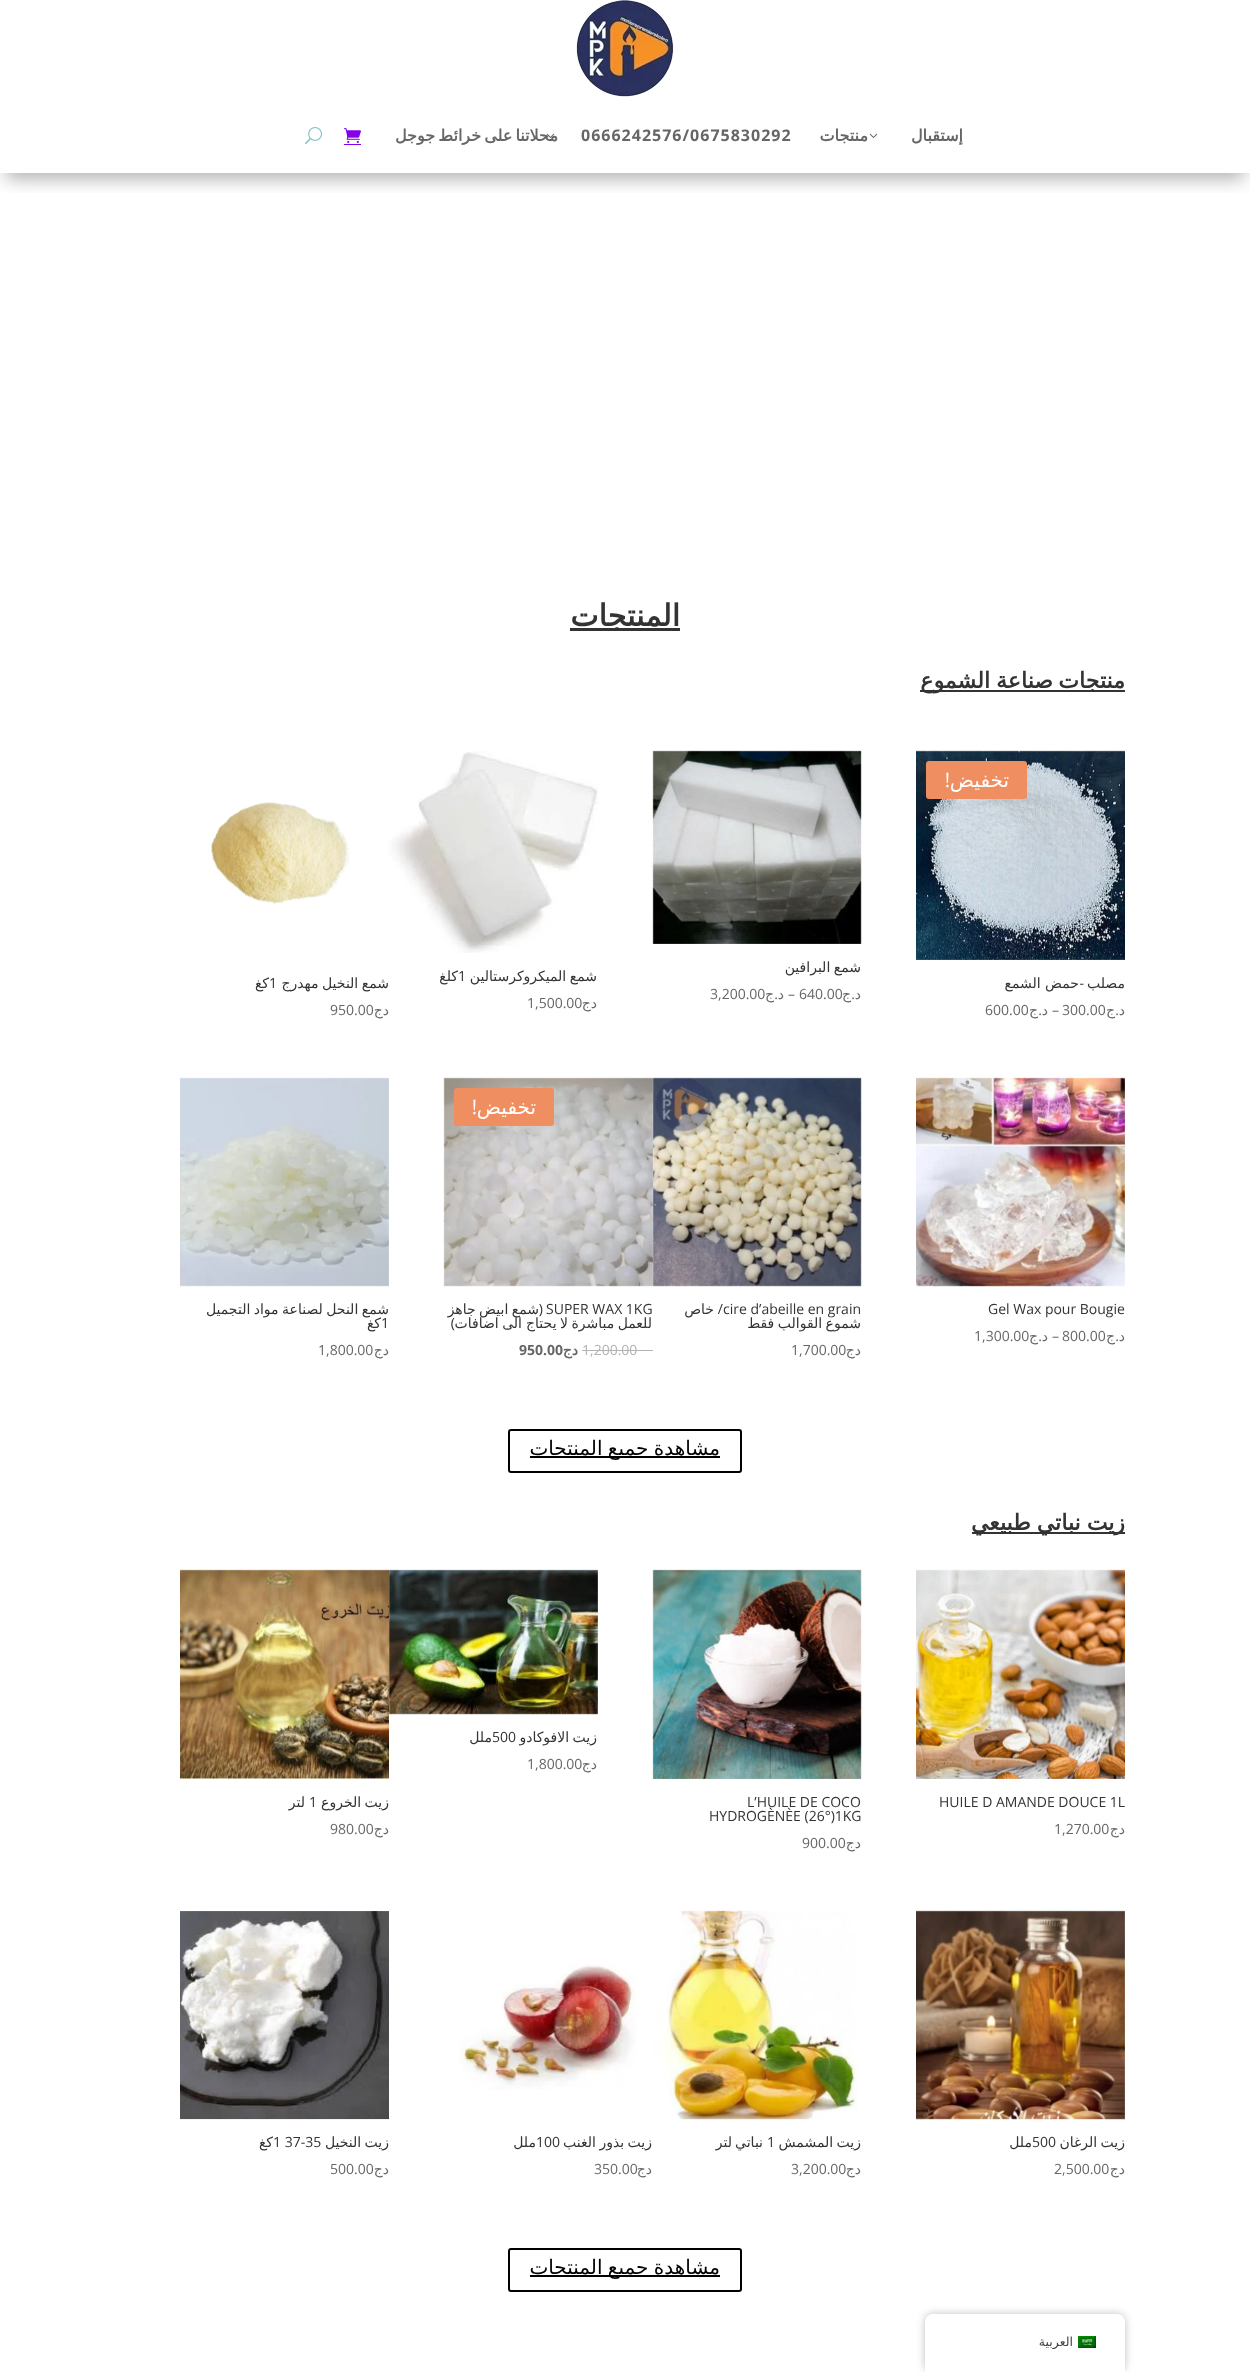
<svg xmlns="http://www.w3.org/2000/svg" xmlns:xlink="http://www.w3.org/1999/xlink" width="1250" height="2372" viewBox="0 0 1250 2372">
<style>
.cls-1{font:bold 16px DejaVu Sans;letter-spacing:1px;direction:rtl;fill:#666666}
.cls-2{font:bold 16px Open Sans;letter-spacing:1px;fill:#666666}
.cls-3{font:bold 30px DejaVu Sans;direction:rtl;fill:#333333}
.cls-4{font:bold 22px DejaVu Sans;direction:rtl;fill:#333333}
.cls-5{font:20px DejaVu Sans;direction:rtl;fill:#ffffff}
.cls-6{font:20px Open Sans;direction:rtl;fill:#ffffff}
.cls-7{font:14px DejaVu Sans;direction:rtl;fill:#333333}
.cls-8{font:14px Open Sans;direction:rtl;fill:#333333}
.cls-9{font:14px DejaVu Sans;direction:rtl;fill:#666666}
.cls-10{font:14px Open Sans;fill:#666666}
.cls-11{font:14px Open Sans;direction:rtl;fill:#666666}
.cls-12{font:14px Open Sans;fill:#333333}
.cls-13{font:14px Open Sans;fill:#b3b3b3}
.cls-14{font:bold 14px DejaVu Sans;direction:rtl;fill:#666666}
.cls-15{font:bold 14px Open Sans;fill:#666666}
.cls-16{font:20px DejaVu Sans;direction:rtl;fill:#000000}
.cls-17{font:12.5px DejaVu Sans;direction:rtl;fill:#404040}
</style>
<defs>
<clipPath id="clip1"><rect x="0" y="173" width="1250" height="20"/></clipPath>
</defs>
<rect width="100%" height="100%" fill="#ffffff"/>
<g clip-path="url(#clip1)">
<rect fill="#000000" fill-opacity="0.3" filter="blur(9px)" x="6" y="18" width="1238" height="161"/>
</g>
<image xlink:href="image0.png" x="576" y="0" width="98" height="97"/>
<image xlink:href="image1.png" x="869" y="133" width="9" height="5"/>
<rect fill="#8300e9" x="344" y="144" width="17" height="1"/>
<image xlink:href="image3.png" x="344" y="128" width="17" height="15"/>
<image xlink:href="image4.png" x="305" y="127" width="17" height="18"/>
<rect fill="#333333" x="570" y="628" width="110" height="3"/>
<rect fill="#333333" x="920" y="690" width="205" height="2"/>
<image xlink:href="image5.png" x="916" y="750" width="209" height="210"/>
<rect fill="#ef8f61" x="926" y="761" width="101" height="38" rx="3"/>
<image xlink:href="image6.png" x="652" y="750" width="210" height="194"/>
<image xlink:href="image7.png" x="389" y="751" width="209" height="202"/>
<image xlink:href="image8.png" x="211" y="802" width="139" height="102"/>
<image xlink:href="image9.png" x="916" y="1077" width="209" height="210"/>
<image xlink:href="image10.png" x="652" y="1077" width="210" height="210"/>
<image xlink:href="image11.png" x="443" y="1077" width="210" height="210"/>
<rect fill="#ef8f61" x="454" y="1088" width="100" height="38" rx="3"/>
<rect fill="#b3b3b3" x="637" y="1350" width="16" height="1"/>
<rect fill="#b3b3b3" x="582" y="1350" width="55" height="1"/>
<image xlink:href="image12.png" x="180" y="1077" width="209" height="210"/>
<rect fill="none" stroke="#000000" stroke-width="2" x="509" y="1430" width="232" height="42" rx="2"/>
<rect fill="#000000" x="530" y="1456" width="190" height="2"/>
<rect fill="#333333" x="972" y="1532" width="153" height="2"/>
<image xlink:href="image13.png" x="388" y="1569" width="210" height="146"/>
<image xlink:href="image14.png" x="916" y="1569" width="209" height="210"/>
<image xlink:href="image15.png" x="652" y="1569" width="210" height="210"/>
<image xlink:href="image16.png" x="180" y="1569" width="209" height="210"/>
<image xlink:href="image17.png" x="916" y="1910" width="209" height="210"/>
<image xlink:href="image18.png" x="653" y="1910" width="205" height="210"/>
<image xlink:href="image19.png" x="459" y="1964" width="177" height="126"/>
<image xlink:href="image20.png" x="180" y="1911" width="209" height="209"/>
<rect fill="none" stroke="#000000" stroke-width="2" x="509" y="2249" width="232" height="42" rx="2"/>
<rect fill="#000000" x="530" y="2275" width="190" height="2"/>
<rect fill="#000000" fill-opacity="0.25" filter="blur(4px)" x="925" y="2314" width="200" height="58" rx="8"/>
<path fill="#ffffff" d="M933 2314H1117C1121.5 2314 1125 2317.5 1125 2322V2372H925V2322C925 2317.5 928.5 2314 933 2314Z"/>
<image xlink:href="image21.png" x="1078" y="2336" width="18" height="12"/>
<text class="cls-1" x="963" y="141">إستقبال</text>
<text class="cls-1" x="868" y="141">منتجات</text>
<text class="cls-2" x="581" y="141">0666242576/0675830292</text>
<text class="cls-1" x="558" y="141" word-spacing="-2">محلاتنا على خرائط جوجل</text>
<image xlink:href="image2.png" x="546" y="133" width="9" height="5"/>
<text class="cls-3" x="680" y="626">المنتجات</text>
<text class="cls-4" x="1125" y="688">منتجات</text>
<text class="cls-4" x="1053" y="688">صناعة</text>
<text class="cls-4" x="990" y="688">الشموع</text>
<text class="cls-5" x="1009" y="787">تخفيض</text>
<text class="cls-6" x="950" y="787">!</text>
<text class="cls-7" x="1125" y="988">مصلب</text>
<text class="cls-8" x="1084" y="988">-</text>
<text class="cls-7" x="1079" y="988">حمض الشمع</text>
<text class="cls-9" x="1125" y="1015">د</text>
<text class="cls-9" x="1115" y="1015">ج</text>
<text class="cls-10" x="1062" y="1015">300.00</text>
<text class="cls-10" x="1052" y="1015">–</text>
<text class="cls-9" x="1048" y="1015">د</text>
<text class="cls-9" x="1038" y="1015">ج</text>
<text class="cls-10" x="985" y="1015">600.00</text>
<text class="cls-11" x="1119" y="1015">.</text>
<text class="cls-11" x="1042" y="1015">.</text>
<text class="cls-7" x="861" y="972" word-spacing="-1">شمع البرافين</text>
<text class="cls-9" x="861" y="999">د</text>
<text class="cls-9" x="851" y="999">ج</text>
<text class="cls-10" x="799" y="999">640.00</text>
<text class="cls-10" x="788" y="999">–</text>
<text class="cls-9" x="784" y="999">د</text>
<text class="cls-9" x="774" y="999">ج</text>
<text class="cls-10" x="710" y="999">3,200.00</text>
<text class="cls-11" x="855" y="999">.</text>
<text class="cls-11" x="778" y="999">.</text>
<text class="cls-7" x="597" y="981" word-spacing="-1">شمع الميكروكرستالين</text>
<text class="cls-12" x="458" y="981">1</text>
<text class="cls-7" x="458" y="981">كلغ</text>
<text class="cls-9" x="597" y="1008">دج</text>
<text class="cls-10" x="527" y="1008">1,500.00</text>
<text class="cls-7" x="389" y="988" word-spacing="-1">شمع النخيل مهدرج</text>
<text class="cls-12" x="269" y="988">1</text>
<text class="cls-7" x="269" y="988">كغ</text>
<text class="cls-9" x="389" y="1015">دج</text>
<text class="cls-10" x="330" y="1015">950.00</text>
<text class="cls-12" x="988" y="1314">Gel Wax pour Bougie</text>
<text class="cls-9" x="1125" y="1341">د</text>
<text class="cls-9" x="1115" y="1341">ج</text>
<text class="cls-10" x="1062" y="1341">800.00</text>
<text class="cls-10" x="1052" y="1341">–</text>
<text class="cls-9" x="1048" y="1341">د</text>
<text class="cls-9" x="1038" y="1341">ج</text>
<text class="cls-10" x="974" y="1341">1,300.00</text>
<text class="cls-11" x="1119" y="1341">.</text>
<text class="cls-11" x="1042" y="1341">.</text>
<text class="cls-12" x="723" y="1314">cire d’abeille en grain</text>
<text class="cls-8" x="723" y="1314">/</text>
<text class="cls-7" x="714" y="1314">خاص</text>
<text class="cls-7" x="861" y="1328" word-spacing="-1">شموع القوالب فقط</text>
<text class="cls-9" x="861" y="1355">دج</text>
<text class="cls-10" x="791" y="1355">1,700.00</text>
<text class="cls-5" x="536" y="1114">تخفيض</text>
<text class="cls-6" x="477" y="1114">!</text>
<text class="cls-12" x="546" y="1314">SUPER WAX 1KG</text>
<text class="cls-8" x="543" y="1314">(</text>
<text class="cls-7" x="539" y="1314" word-spacing="-1">شمع ابيض جاهز</text>
<text class="cls-7" x="652" y="1328" word-spacing="-1">للعمل مباشرة لا يحتاج</text>
<text class="cls-7" x="522" y="1328" word-spacing="-1">الى اضافات</text>
<text class="cls-8" x="455" y="1328">)</text>
<text class="cls-13" x="582" y="1355">1,200.00</text>
<text class="cls-14" x="578" y="1355">دج</text>
<text class="cls-15" x="519" y="1355">950.00</text>
<text class="cls-7" x="389" y="1314" word-spacing="-1">شمع النحل لصناعة مواد التجميل</text>
<text class="cls-12" x="381" y="1328">1</text>
<text class="cls-7" x="381" y="1328">كغ</text>
<text class="cls-9" x="389" y="1355">دج</text>
<text class="cls-10" x="318" y="1355">1,800.00</text>
<text class="cls-16" x="720" y="1455" word-spacing="-1">مشاهدة جميع المنتجات</text>
<text class="cls-4" x="1125" y="1530" word-spacing="-1">زيت نباتي طبيعي</text>
<text class="cls-7" x="597" y="1742" word-spacing="-1">زيت الافوكادو</text>
<text class="cls-12" x="492" y="1742">500</text>
<text class="cls-7" x="492" y="1742">ملل</text>
<text class="cls-9" x="597" y="1769">دج</text>
<text class="cls-10" x="527" y="1769">1,800.00</text>
<text class="cls-12" x="939" y="1807">HUILE D AMANDE DOUCE 1L</text>
<text class="cls-9" x="1125" y="1834">دج</text>
<text class="cls-10" x="1054" y="1834">1,270.00</text>
<text class="cls-12" x="747" y="1807">L’HUILE DE COCO</text>
<text class="cls-12" x="709" y="1821">HYDROGÈNÈE (26°)1KG</text>
<text class="cls-9" x="861" y="1848">دج</text>
<text class="cls-10" x="802" y="1848">900.00</text>
<text class="cls-7" x="389" y="1807" word-spacing="-1">زيت الخروع</text>
<text class="cls-12" x="309" y="1807">1</text>
<text class="cls-7" x="305" y="1807">لتر</text>
<text class="cls-9" x="389" y="1834">دج</text>
<text class="cls-10" x="330" y="1834">980.00</text>
<text class="cls-7" x="1125" y="2147" word-spacing="-1">زيت الرغان</text>
<text class="cls-12" x="1032" y="2147">500</text>
<text class="cls-7" x="1032" y="2147">ملل</text>
<text class="cls-9" x="1125" y="2174">دج</text>
<text class="cls-10" x="1054" y="2174">2,500.00</text>
<text class="cls-7" x="861" y="2147" word-spacing="-1">زيت المشمش</text>
<text class="cls-12" x="767" y="2147">1</text>
<text class="cls-7" x="763" y="2147">نباتي</text>
<text class="cls-7" x="732" y="2147">لتر</text>
<text class="cls-9" x="861" y="2174">دج</text>
<text class="cls-10" x="791" y="2174">3,200.00</text>
<text class="cls-7" x="652" y="2147" word-spacing="-1">زيت بذور الغنب</text>
<text class="cls-12" x="536" y="2147">100</text>
<text class="cls-7" x="536" y="2147">ملل</text>
<text class="cls-9" x="652" y="2174">دج</text>
<text class="cls-10" x="594" y="2174">350.00</text>
<text class="cls-7" x="389" y="2147" word-spacing="-1">زيت النخيل</text>
<text class="cls-12" x="273" y="2147">1 37-35</text>
<text class="cls-7" x="273" y="2147">كغ</text>
<text class="cls-9" x="389" y="2174">دج</text>
<text class="cls-10" x="330" y="2174">500.00</text>
<text class="cls-16" x="720" y="2274" word-spacing="-1">مشاهدة جميع المنتجات</text>
<text class="cls-17" x="1073" y="2346">العربية</text>
</svg>
